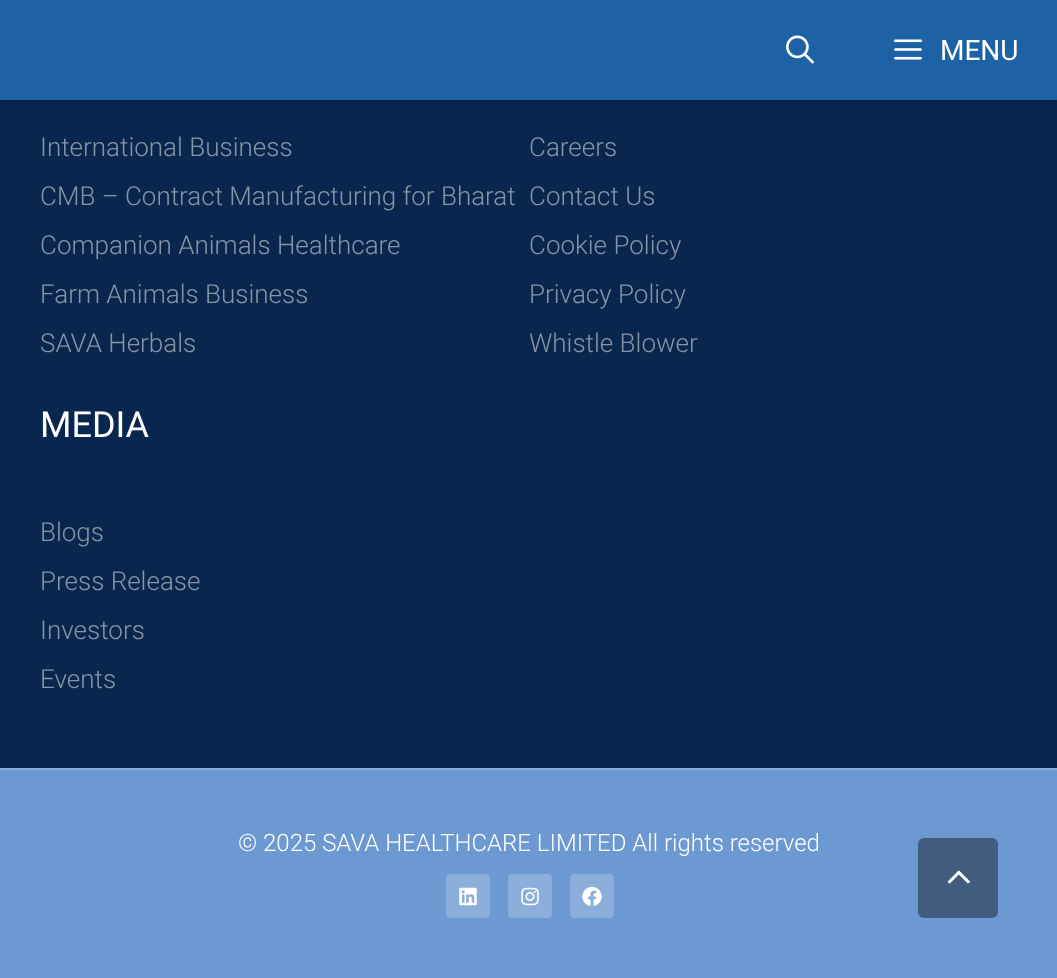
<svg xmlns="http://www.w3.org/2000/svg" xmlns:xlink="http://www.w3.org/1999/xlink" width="1057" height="978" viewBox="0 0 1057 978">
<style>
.cls-1{font:28px Roboto;fill:#ffffff}
.cls-2{font:300 26px Roboto;fill:#8695a8}
.cls-3{font:36px Roboto;fill:#ffffff}
.cls-4{font:300 24px Roboto;fill:#ffffff}
</style>
<rect width="100%" height="100%" fill="#09264e"/>
<rect fill="#000000" fill-opacity="0.2" filter="blur(2px)" x="4" y="8" width="1050" height="92"/>
<rect fill="#1c62a4" x="0" y="0" width="1057" height="100"/>
<image xlink:href="image0.png" x="786" y="35" width="28" height="29"/>
<image xlink:href="image1.png" x="894" y="39" width="28" height="21"/>
<rect fill="#6d99d2" x="0" y="770" width="1057" height="208"/>
<rect fill="#89acdb" x="0" y="768" width="1057" height="2"/>
<rect fill="#8caedb" x="446" y="874" width="44" height="44" rx="4"/>
<image xlink:href="image2.png" x="459" y="887" width="18" height="19"/>
<rect fill="#8caedb" x="508" y="874" width="44" height="44" rx="4"/>
<image xlink:href="image3.png" x="521" y="887" width="18" height="19"/>
<rect fill="#8caedb" x="570" y="874" width="44" height="44" rx="4"/>
<image xlink:href="image4.png" x="582" y="886" width="20" height="20"/>
<rect fill="#415c7e" x="918" y="838" width="80" height="80" rx="6"/>
<image xlink:href="image5.png" x="947" y="870" width="23" height="14"/>
<text class="cls-1" x="940" y="60">MENU</text>
<text class="cls-2"><tspan x="40" y="156">International Business</tspan><tspan x="40" y="205">CMB – Contract Manufacturing for Bharat</tspan><tspan x="40" y="254">Companion Animals Healthcare</tspan><tspan x="40" y="303">Farm Animals Business</tspan><tspan x="40" y="352">SAVA Herbals</tspan></text>
<text class="cls-2"><tspan x="529" y="156">Careers</tspan><tspan x="529" y="205">Contact Us</tspan><tspan x="529" y="254">Cookie Policy</tspan><tspan x="529" y="303">Privacy Policy</tspan><tspan x="529" y="352">Whistle Blower</tspan></text>
<text class="cls-3" x="40" y="437">MEDIA</text>
<text class="cls-2"><tspan x="40" y="541">Blogs</tspan><tspan x="40" y="590">Press Release</tspan><tspan x="40" y="639">Investors</tspan><tspan x="40" y="688">Events</tspan></text>
<text class="cls-4" x="238" y="851">© 2025 SAVA HEALTHCARE LIMITED All rights reserved</text>
</svg>
